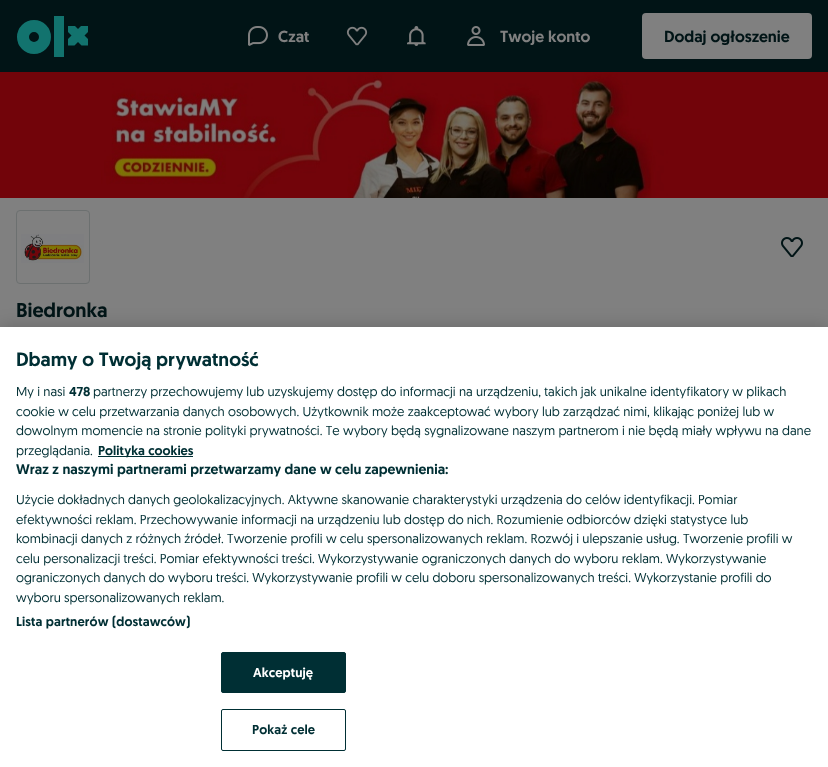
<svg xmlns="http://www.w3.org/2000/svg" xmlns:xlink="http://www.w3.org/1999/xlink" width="828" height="767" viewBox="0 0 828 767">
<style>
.cls-1{font:500 16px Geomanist;fill:#808080}
.cls-2{font:500 16px Geomanist;fill:#011416}
.cls-3{font:500 20px Geomanist;fill:#011416}
.cls-4{font:500 19.25px Geomanist;fill:#002f34}
.cls-5{font:13px Geomanist;fill:#002f34}
.cls-6{font:500 13px Geomanist;fill:#002f34}
.cls-7{font:500 14.1px Geomanist;fill:#002f34}
.cls-8{font:500 13px Geomanist;letter-spacing:0.1px;fill:#002f34}
.cls-9{font:500 13px Geomanist;letter-spacing:0.1px;fill:#ffffff}
</style>
<defs>
<clipPath id="clip1"><rect x="68" y="26" width="20" height="20"/></clipPath>
</defs>
<rect width="100%" height="100%" fill="#808080"/>
<rect fill="#011416" x="0" y="0" width="828" height="72"/>
<circle fill="none" stroke="#12736e" stroke-width="12" cx="34" cy="37" r="11"/>
<rect fill="#12736e" x="54" y="16" width="10" height="41"/>
<g clip-path="url(#clip1)">
<path fill="#12736e" d="M61.5 25.5H74.5L94.5 45.5H81.5Z"/>
<path fill="#12736e" d="M81.5 25.5H94.5L74.5 45.5H61.5Z"/>
</g>
<image xlink:href="image0.png" x="248" y="26" width="20" height="20"/>
<image xlink:href="image1.png" x="346" y="26" width="22" height="20"/>
<image xlink:href="image2.png" x="407" y="26" width="19" height="20"/>
<image xlink:href="image3.png" x="467" y="26" width="18" height="20"/>
<rect fill="#808080" x="642" y="13" width="170" height="46" rx="4"/>
<image xlink:href="image4.png" x="0" y="72" width="828" height="126"/>
<rect fill="none" stroke="#6c7070" x="16.5" y="210.5" width="73" height="73" rx="3.5"/>
<image xlink:href="image5.png" x="21" y="234" width="63" height="29"/>
<image xlink:href="image6.png" x="781" y="237" width="22" height="20"/>
<rect fill="#000000" fill-opacity="0.2" filter="blur(9px)" x="0" y="327" width="828" height="440"/>
<rect fill="#ffffff" x="0" y="327" width="828" height="440"/>
<rect fill="#002f34" x="98" y="456" width="95" height="1"/>
<rect fill="#002f34" stroke="#002f34" x="221.5" y="652.5" width="124" height="40" rx="1.5"/>
<rect fill="none" stroke="#002f34" x="221.5" y="709.5" width="124" height="41" rx="1.5"/>
<text class="cls-1" x="278" y="42">Czat</text>
<text class="cls-1" x="500" y="42">Twoje konto</text>
<text class="cls-2" x="664" y="42">Dodaj ogłoszenie</text>
<text class="cls-3" x="16" y="317">Biedronka</text>
<text class="cls-4" x="16" y="366">Dbamy o Twoją prywatność</text>
<text class="cls-5" x="16" y="396">My i nasi</text>
<text class="cls-6" x="69" y="396">478</text>
<text class="cls-5" x="93" y="396">partnerzy przechowujemy lub uzyskujemy dostęp do informacji na urządzeniu, takich jak unikalne identyfikatory w plikach</text>
<text class="cls-5"><tspan x="16" y="416">cookie w celu przetwarzania danych osobowych. Użytkownik może zaakceptować wybory lub zarządzać nimi, klikając poniżej lub w</tspan><tspan x="16" y="435">dowolnym momencie na stronie polityki prywatności. Te wybory będą sygnalizowane naszym partnerom i nie będą miały wpływu na dane</tspan><tspan x="16" y="455">przeglądania.</tspan></text>
<text class="cls-6" x="98" y="455">Polityka cookies</text>
<text class="cls-7" x="16" y="474">Wraz z naszymi partnerami przetwarzamy dane w celu zapewnienia:</text>
<text class="cls-5"><tspan x="16" y="504">Użycie dokładnych danych geolokalizacyjnych. Aktywne skanowanie charakterystyki urządzenia do celów identyfikacji. Pomiar</tspan><tspan x="16" y="524">efektywności reklam. Przechowywanie informacji na urządzeniu lub dostęp do nich. Rozumienie odbiorców dzięki statystyce lub</tspan><tspan x="16" y="543">kombinacji danych z różnych źródeł. Tworzenie profili w celu spersonalizowanych reklam. Rozwój i ulepszanie usług. Tworzenie profili w</tspan><tspan x="16" y="563">celu personalizacji treści. Pomiar efektywności treści. Wykorzystywanie ograniczonych danych do wyboru reklam. Wykorzystywanie</tspan><tspan x="16" y="582">ograniczonych danych do wyboru treści. Wykorzystywanie profili w celu doboru spersonalizowanych treści. Wykorzystanie profili do</tspan><tspan x="16" y="602">wyboru spersonalizowanych reklam.</tspan></text>
<text class="cls-8" x="16" y="626">Lista partnerów (dostawców)</text>
<text class="cls-9" x="253" y="677">Akceptuję</text>
<text class="cls-8" x="252" y="734">Pokaż cele</text>
</svg>
